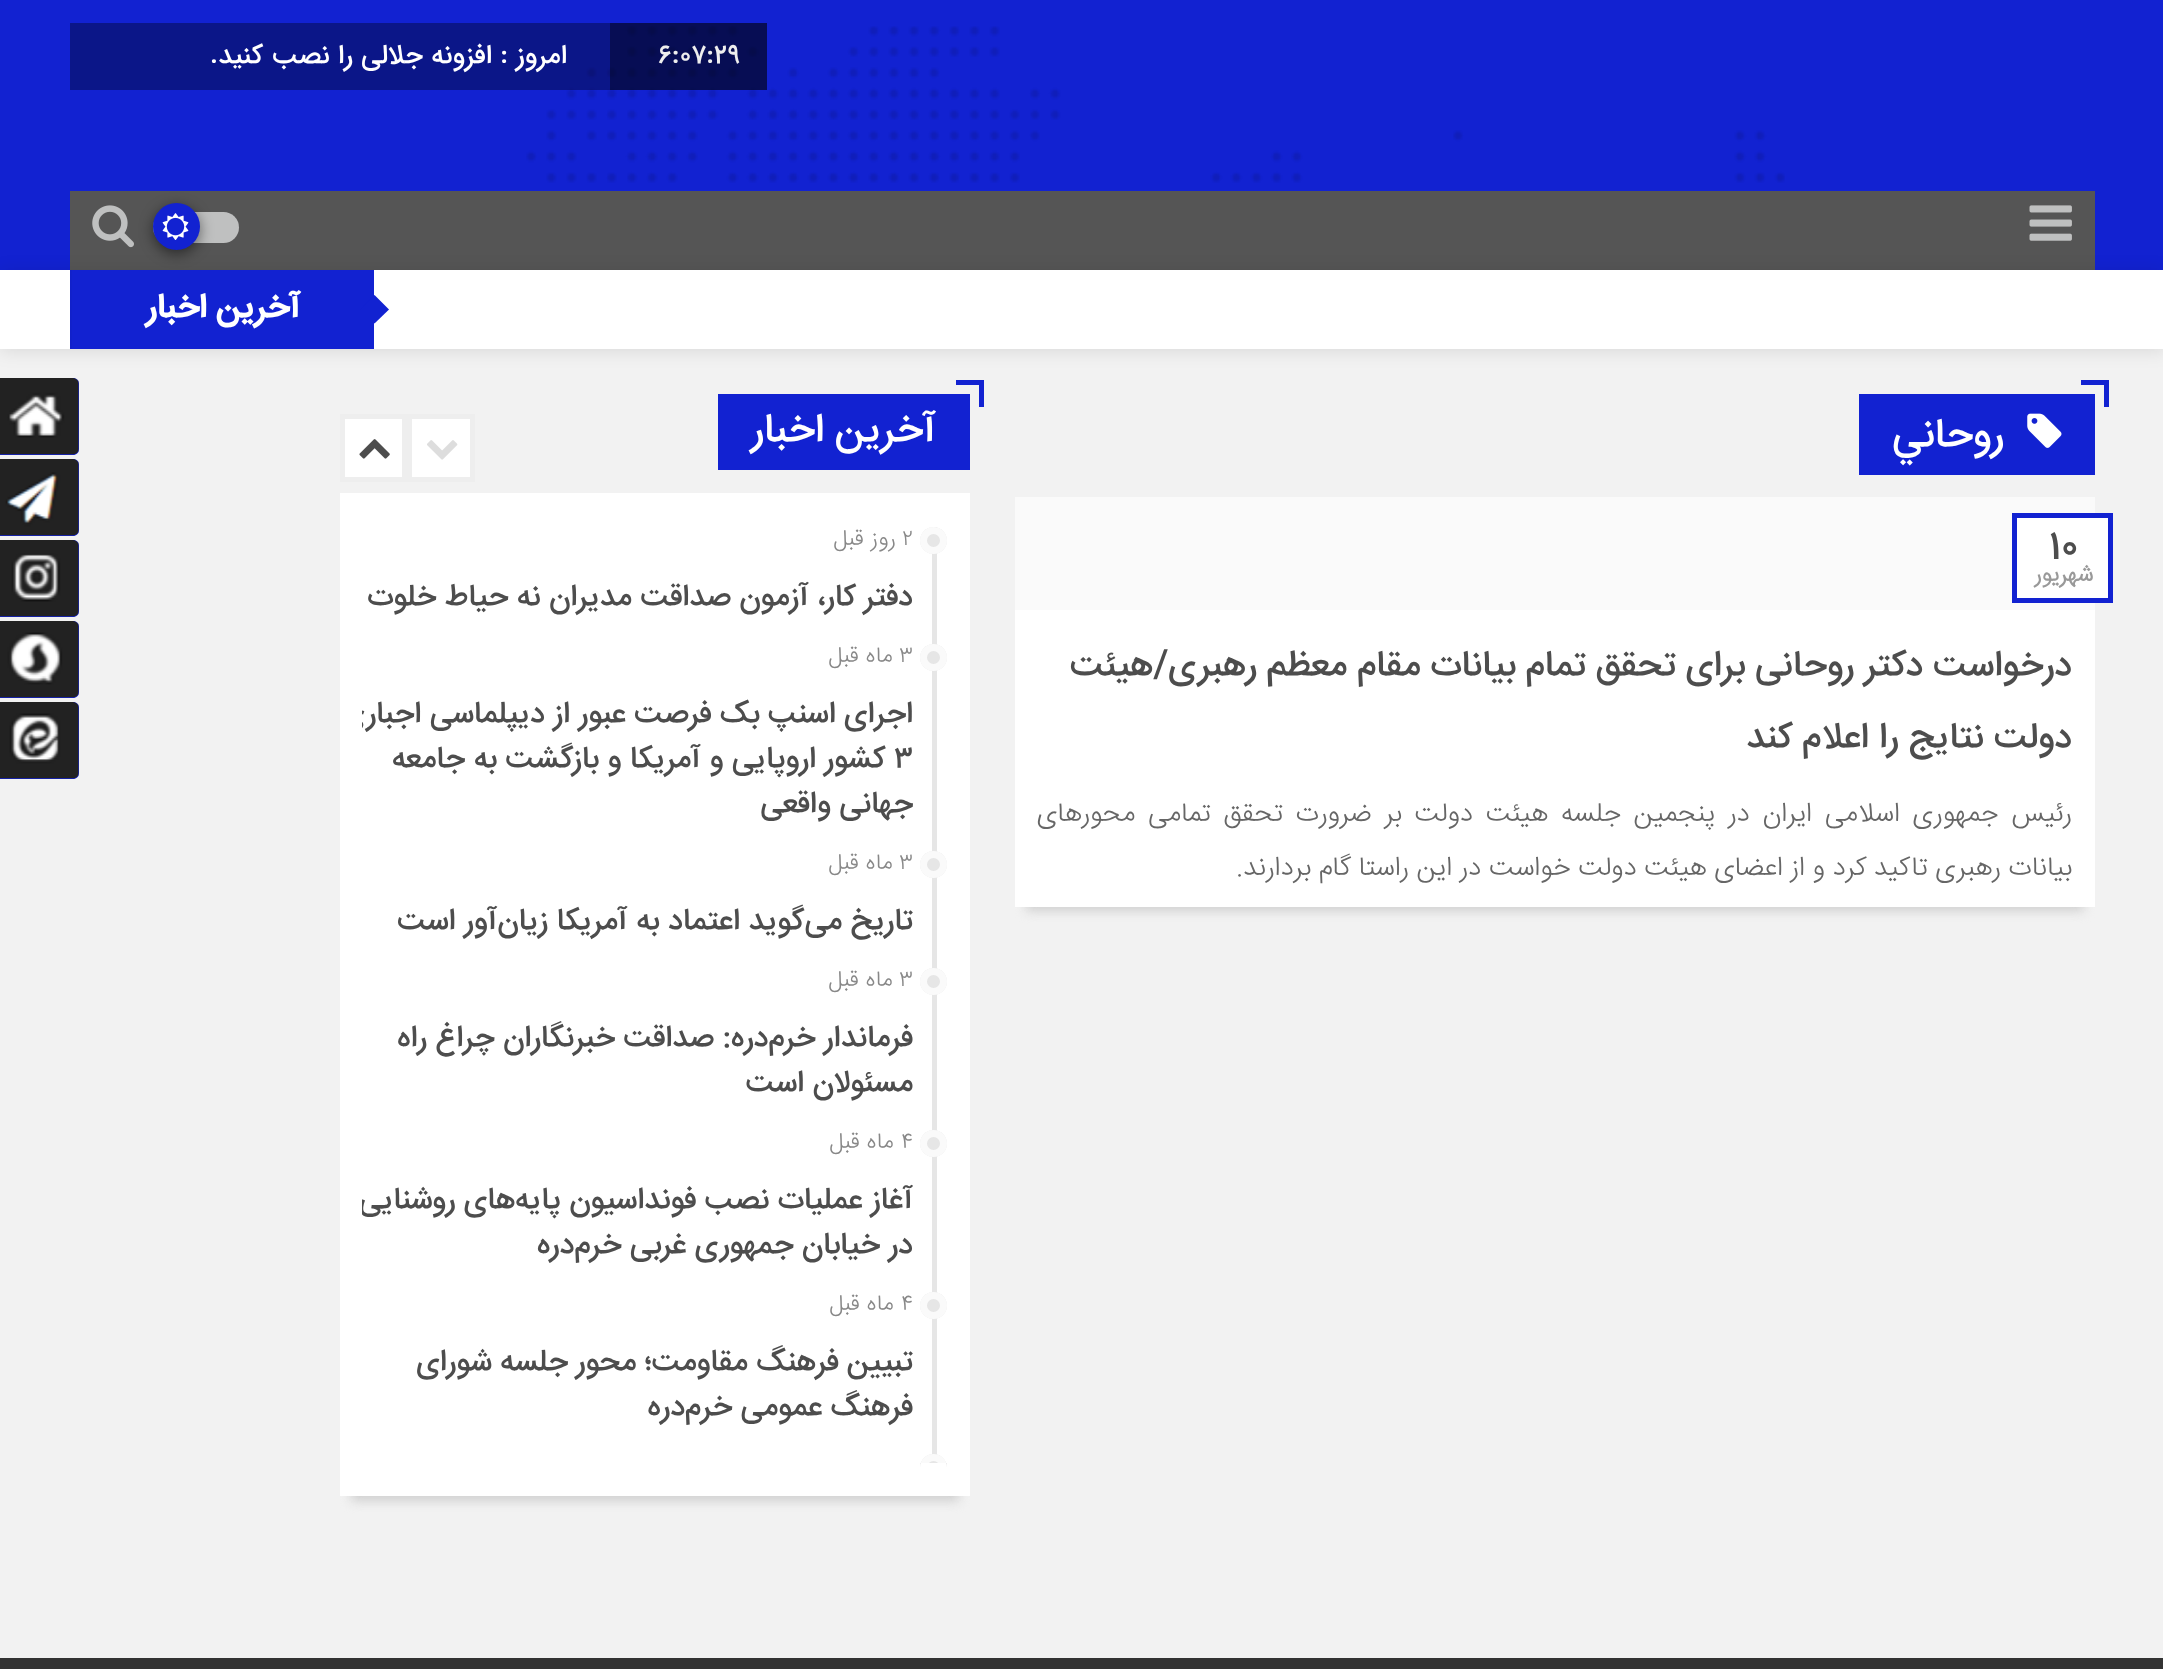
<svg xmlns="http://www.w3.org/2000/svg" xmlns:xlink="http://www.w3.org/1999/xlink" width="2163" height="1669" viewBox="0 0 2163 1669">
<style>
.cls-1{font:500 27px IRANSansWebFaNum;fill:#eeeeee}
.cls-2{font:500 27px IRANSansWebFaNum;direction:rtl;fill:#ffffff}
.cls-3{font:bold 33.75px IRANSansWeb;direction:rtl;fill:#ffffff}
.cls-4{font:500 40.5px IRANSansWeb;direction:rtl;fill:#ffffff}
.cls-5{font:500 40.5px IRANSansWebFaNum;fill:#4d4d4d}
.cls-6{font:bold 22.5px 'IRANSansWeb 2';direction:rtl;fill:#999999}
.cls-7{font:500 36px IRANSansWeb;direction:rtl;fill:#4d4d4d}
.cls-8{font:300 27px IRANSansWeb;direction:rtl;fill:#666666}
.cls-9{font:300 22.5px IRANSansWebFaNum;fill:#888888}
.cls-10{font:300 22.5px IRANSansWebFaNum;direction:rtl;fill:#888888}
.cls-11{font:500 30.4px IRANSansWeb;direction:rtl;fill:#4d4d4d}
.cls-12{font:500 30.4px IRANSansWeb;fill:#4d4d4d}
</style>
<defs>
<clipPath id="clip1"><rect x="362" y="527" width="585" height="936"/></clipPath>
</defs>
<rect width="100%" height="100%" fill="#f2f2f2"/>
<rect fill="#1222d1" x="0" y="0" width="2163" height="270"/>
<image xlink:href="image0.png" x="526" y="26" width="1259" height="157"/>
<rect fill="#000000" fill-opacity="0.6" x="610" y="23" width="157" height="67"/>
<rect fill="#000000" fill-opacity="0.35" x="70" y="23" width="540" height="67"/>
<rect fill="#555555" x="70" y="191" width="2025" height="79"/>
<image xlink:href="image1.png" x="2029" y="205" width="43" height="36"/>
<rect fill="#bfc0c0" x="153" y="212" width="86" height="31" rx="15.5"/>
<image xlink:href="image3.png" x="92" y="205" width="42" height="43"/>
<rect fill="#000000" fill-opacity="0.5" filter="blur(7px)" x="153" y="207" width="47" height="47" rx="23.5"/>
<circle fill="#1222d1" cx="176.5" cy="226.5" r="23.5"/>
<image xlink:href="image2.png" x="162" y="213" width="27" height="27"/>
<rect fill="#000000" fill-opacity="0.1" filter="blur(9px)" x="0" y="272" width="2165" height="79"/>
<rect fill="#ffffff" x="0" y="270" width="2163" height="79"/>
<rect fill="#1222d1" x="72" y="270" width="302" height="79"/>
<rect fill="#1121cb" x="70" y="270" width="2" height="79"/>
<path fill="#1222d1" d="M374.5 295L389 309.5L374.5 323.5L360.5 309.5Z"/>
<rect fill="#1222d1" x="1859" y="394" width="236" height="81"/>
<rect fill="#1222d1" x="2081" y="380" width="27" height="5"/>
<rect fill="#1222d1" x="2104" y="380" width="5" height="27"/>
<image xlink:href="image4.png" x="2027" y="413" width="35" height="35"/>
<rect fill="#cfcfcf" filter="blur(5.5px)" x="1026" y="524" width="1058" height="387"/>
<rect fill="#ffffff" x="1015" y="610" width="1080" height="297"/>
<rect fill="#fafafa" x="1015" y="497" width="1080" height="113"/>
<rect fill="#ffffff" stroke="#1222d1" stroke-width="5" x="2014.5" y="515.5" width="96" height="85"/>
<rect fill="#1222d1" x="718" y="394" width="252" height="76"/>
<rect fill="#1222d1" x="956" y="380" width="27" height="5"/>
<rect fill="#1222d1" x="979" y="380" width="5" height="27"/>
<rect fill="#cfcfcf" filter="blur(5.5px)" x="351" y="520" width="608" height="981"/>
<rect fill="#ffffff" x="340" y="493" width="630" height="1003"/>
<rect fill="#ffffff" stroke="#eeeeee" stroke-width="5" x="409.5" y="416.5" width="63" height="63"/>
<image xlink:href="image5.png" x="427" y="440" width="31" height="20"/>
<rect fill="#ffffff" stroke="#eeeeee" stroke-width="5" x="342.5" y="416.5" width="62" height="63"/>
<image xlink:href="image6.png" x="359" y="439" width="31" height="20"/>
<rect fill="#e6e6e6" x="932" y="527" width="5" height="936"/>
<circle fill="#e6e6e6" cx="933.5" cy="540.5" r="13.5"/>
<circle fill="none" stroke="#ffffff" stroke-opacity="0.8" stroke-width="7" cx="933.5" cy="540.5" r="10"/>
<circle fill="#e6e6e6" cx="933.5" cy="657.5" r="13.5"/>
<circle fill="none" stroke="#ffffff" stroke-opacity="0.8" stroke-width="7" cx="933.5" cy="657.5" r="10"/>
<circle fill="#e6e6e6" cx="933.5" cy="864.5" r="13.5"/>
<circle fill="none" stroke="#ffffff" stroke-opacity="0.8" stroke-width="7" cx="933.5" cy="864.5" r="10"/>
<circle fill="#e6e6e6" cx="933.5" cy="981.5" r="13.5"/>
<circle fill="none" stroke="#ffffff" stroke-opacity="0.8" stroke-width="7" cx="933.5" cy="981.5" r="10"/>
<circle fill="#e6e6e6" cx="933.5" cy="1143.5" r="13.5"/>
<circle fill="none" stroke="#ffffff" stroke-opacity="0.8" stroke-width="7" cx="933.5" cy="1143.5" r="10"/>
<circle fill="#e6e6e6" cx="933.5" cy="1305.5" r="13.5"/>
<circle fill="none" stroke="#ffffff" stroke-opacity="0.8" stroke-width="7" cx="933.5" cy="1305.5" r="10"/>
<path fill="#e6e6e6" d="M933.5 1454C941 1454 947 1460 947 1467.5V1463H920V1467.5C920 1460 926 1454 933.5 1454Z"/>
<g clip-path="url(#clip1)">
<circle fill="none" stroke="#ffffff" stroke-opacity="0.8" stroke-width="7" cx="933.5" cy="1467.5" r="10"/>
</g>
<path fill="#1222d1" d="M-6 378H73C76.5 378 79 380.5 79 384V449C79 452.5 76.5 455 73 455H-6Z"/>
<image xlink:href="image7.png" x="0" y="378" width="79" height="77"/>
<path fill="#1222d1" d="M-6 459H73C76.5 459 79 461.5 79 465V530C79 533.5 76.5 536 73 536H-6Z"/>
<image xlink:href="image8.png" x="0" y="459" width="79" height="77"/>
<path fill="#1222d1" d="M-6 540H73C76.5 540 79 542.5 79 546V611C79 614.5 76.5 617 73 617H-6Z"/>
<image xlink:href="image9.png" x="0" y="540" width="79" height="77"/>
<path fill="#1222d1" d="M-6 621H73C76.5 621 79 623.5 79 627V692C79 695.5 76.5 698 73 698H-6Z"/>
<image xlink:href="image10.png" x="0" y="621" width="79" height="77"/>
<path fill="#1222d1" d="M-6 702H73C76.5 702 79 704.5 79 708V773C79 776.5 76.5 779 73 779H-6Z"/>
<image xlink:href="image11.png" x="0" y="702" width="79" height="77"/>
<rect fill="#333333" x="0" y="1658" width="2163" height="11"/>
<text class="cls-1" x="658" y="63">6:07:29</text>
<text class="cls-2" x="567" y="63">امروز : افزونه جلالی را نصب کنید.</text>
<text class="cls-3" x="300" y="317">آخرین اخبار</text>
<text class="cls-4" x="2004" y="446">روحاني</text>
<text class="cls-5" x="2049" y="558">10</text>
<text class="cls-6" x="2093" y="581">شهریور</text>
<text class="cls-7" x="2072" y="675">درخواست دکتر روحانی برای تحقق تمام بیانات مقام معظم رهبری/هیئت</text>
<text class="cls-7" x="2072" y="747">دولت نتایج را اعلام کند</text>
<text class="cls-8" x="2072" y="821" word-spacing="5.1">رئیس جمهوری اسلامی ایران در پنجمین جلسه هیئت دولت بر ضرورت تحقق تمامی محورهای</text>
<text class="cls-8" x="2072" y="875">بیانات رهبری تاکید کرد و از اعضای هیئت دولت خواست در این راستا گام بردارند.</text>
<text class="cls-4" x="936" y="441">آخرین اخبار</text>
<text class="cls-9" x="902" y="545">2</text>
<text class="cls-10" x="896" y="545">روز</text>
<text class="cls-10" x="864" y="545">قبل</text>
<text class="cls-11" x="913" y="605">دفتر کار، آزمون صداقت مدیران نه حیاط خلوت</text>
<text class="cls-9" x="899" y="662">3</text>
<text class="cls-10" x="893" y="662">ماه</text>
<text class="cls-10" x="859" y="662">قبل</text>
<g clip-path="url(#clip1)">
<text class="cls-11" x="913" y="722">اجرای اسنپ بک فرصت عبور از دیپلماسی اجباری</text>
</g>
<text class="cls-12" x="894" y="767">۳</text>
<text class="cls-11" x="885" y="767">کشور اروپایی و آمریکا و بازگشت به جامعه</text>
<text class="cls-11" x="913" y="812">جهانی واقعی</text>
<text class="cls-9" x="899" y="869">3</text>
<text class="cls-10" x="893" y="869">ماه</text>
<text class="cls-10" x="859" y="869">قبل</text>
<text class="cls-11" x="913" y="929">تاریخ می‌گوید اعتماد به آمریکا زیان‌آور است</text>
<text class="cls-9" x="899" y="986">3</text>
<text class="cls-10" x="893" y="986">ماه</text>
<text class="cls-10" x="859" y="986">قبل</text>
<text class="cls-11"><tspan x="913" y="1046">فرماندار خرم‌دره: صداقت خبرنگاران چراغ راه</tspan><tspan x="913" y="1091">مسئولان است</tspan></text>
<text class="cls-9" x="901" y="1148">4</text>
<text class="cls-10" x="894" y="1148">ماه</text>
<text class="cls-10" x="860" y="1148">قبل</text>
<g clip-path="url(#clip1)">
<text class="cls-11" x="913" y="1208">آغاز عملیات نصب فونداسیون پایه‌های روشنایی</text>
</g>
<text class="cls-11" x="913" y="1253">در خیابان جمهوری غربی خرم‌دره</text>
<text class="cls-9" x="901" y="1310">4</text>
<text class="cls-10" x="894" y="1310">ماه</text>
<text class="cls-10" x="860" y="1310">قبل</text>
<text class="cls-11" x="913" y="1370">تبیین فرهنگ مقاومت؛ محور</text>
<text class="cls-11" x="568" y="1370">جلسه شورای</text>
<text class="cls-11" x="913" y="1415">فرهنگ عمومی خرم‌دره</text>
</svg>
